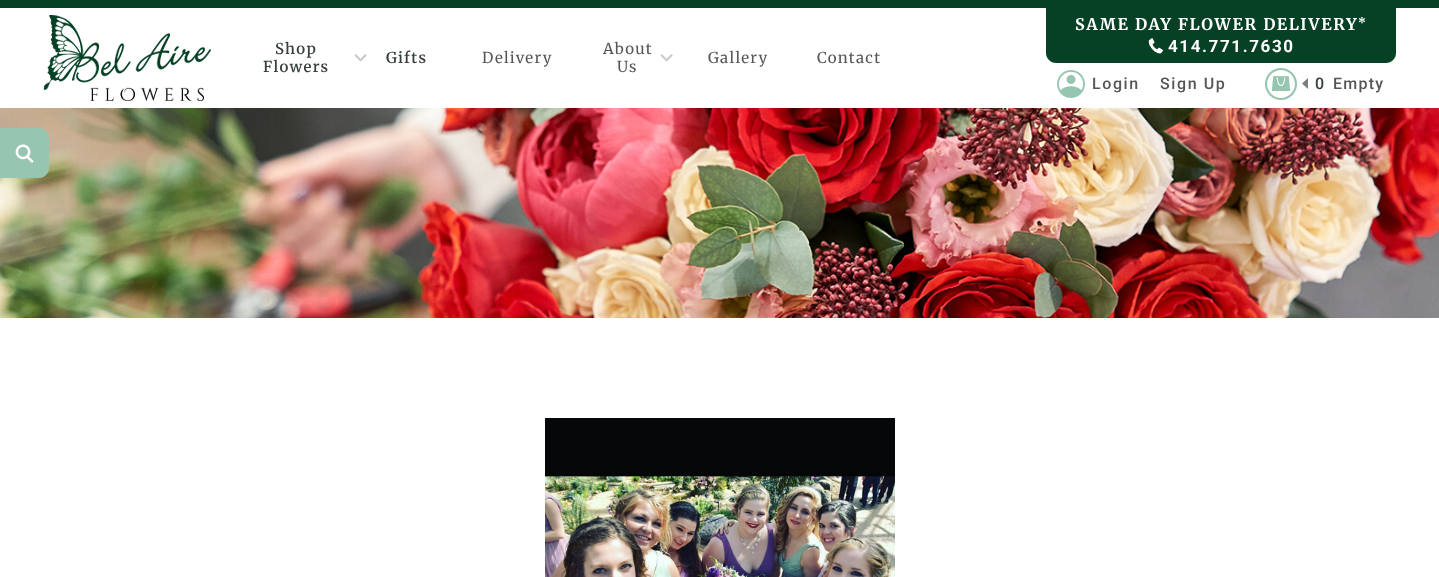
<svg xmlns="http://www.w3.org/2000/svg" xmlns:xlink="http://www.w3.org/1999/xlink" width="1439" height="577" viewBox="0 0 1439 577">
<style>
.cls-1{font:600 15px Merriweather;letter-spacing:1.25px;fill:#37403c}
.cls-2{font:15px Merriweather;letter-spacing:1.25px;fill:#565656}
.cls-3{font:bold 16px Merriweather;letter-spacing:1.6px;fill:#ffffff}
.cls-4{font:bold 12px Merriweather;letter-spacing:1.6px;fill:#ffffff}
.cls-5{font:bold 17px Roboto;letter-spacing:1.6px;fill:#ffffff}
.cls-6{font:500 16px Roboto;letter-spacing:1.6px;fill:#565656}
.cls-7{font:500 16px Roboto;letter-spacing:1.25px;fill:#37403c}
.cls-8{font:500 16px Roboto;letter-spacing:1.25px;fill:#565656}
</style>
<rect width="100%" height="100%" fill="#ffffff"/>
<rect fill="#064125" x="0" y="0" width="1439" height="8"/>
<image xlink:href="image0.png" x="43" y="15" width="168" height="86"/>
<image xlink:href="image1.png" x="354" y="54" width="13" height="8"/>
<image xlink:href="image1.png" x="660" y="54" width="13" height="8"/>
<path fill="#064125" d="M1046 8H1396V53C1396 58.5 1391.5 63 1386 63H1056C1050.5 63 1046 58.5 1046 53Z"/>
<image xlink:href="image2.png" x="1148" y="38" width="15" height="16"/>
<image xlink:href="image3.png" x="1057" y="70" width="28" height="28"/>
<image xlink:href="image4.png" x="1265" y="68" width="32" height="32"/>
<image xlink:href="image5.png" x="1302" y="78" width="6" height="11"/>
<image xlink:href="image6.png" x="0" y="108" width="1439" height="210"/>
<image xlink:href="image7.png" x="545" y="418" width="350" height="159"/>
<rect fill="#37403c" fill-opacity="0.4" filter="blur(2.5px)" x="-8" y="131" width="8" height="50"/>
<path fill="#96c5b0" d="M-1 128H39C44.5 128 49 132.5 49 138V168C49 173.5 44.5 178 39 178H-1Z"/>
<image xlink:href="image8.png" x="15" y="144" width="19" height="19"/>
<text class="cls-1" x="275" y="54">Shop</text>
<text class="cls-1" x="263" y="72">Flowers</text>
<text class="cls-1" x="386" y="63">Gifts</text>
<text class="cls-2" x="482" y="63">Delivery</text>
<text class="cls-2" x="603" y="54">About</text>
<text class="cls-2" x="617" y="72">Us</text>
<text class="cls-2" x="708" y="63">Gallery</text>
<text class="cls-2" x="817" y="63">Contact</text>
<text class="cls-3" x="1075" y="30">SAME DAY FLOWER DELIVERY</text>
<text class="cls-4" x="1358" y="27">*</text>
<text class="cls-5" x="1168" y="52">414.771.7630</text>
<text class="cls-6" x="1092" y="89">Login</text>
<text class="cls-6" x="1160" y="89">Sign Up</text>
<text class="cls-7" x="1315" y="89">0</text>
<text class="cls-8" x="1333" y="89">Empty</text>
</svg>
